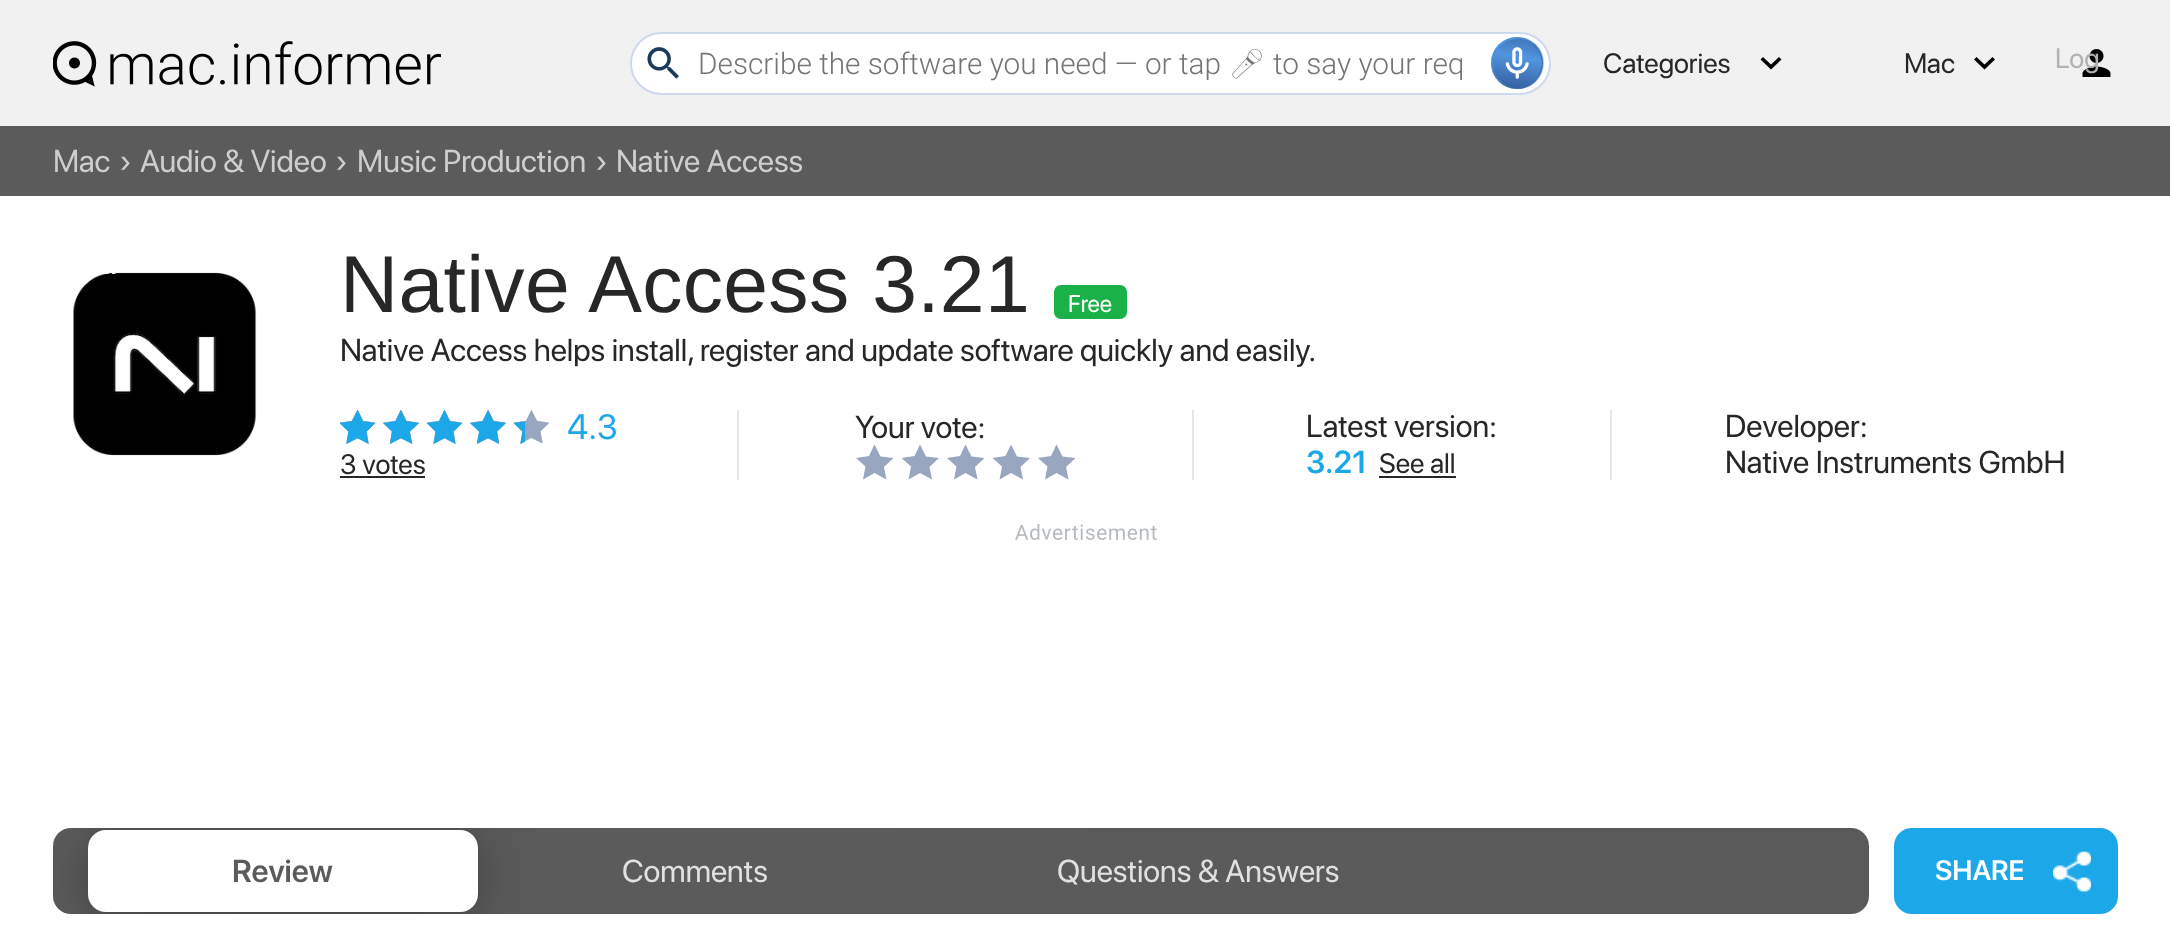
<svg xmlns="http://www.w3.org/2000/svg" xmlns:xlink="http://www.w3.org/1999/xlink" width="2170" height="930" viewBox="0 0 2170 930">
<style>
.cls-1{font:300 29.75px Roboto;fill:#757575}
.cls-2{font:300 29.75px Noto Emoji;fill:#757575}
.cls-3{font:28px SF Pro Display;fill:#272727}
.cls-4{font:28px SF Pro Display;fill:#b2b2b2}
.cls-5{font:31.5px SF Pro Display;fill:#cecece}
.cls-6{font:80.5px Liberation Sans;letter-spacing:0.3px;fill:#272727}
.cls-7{font:24px SF Pro Display;fill:#ffffff}
.cls-8{font:31.5px SF Pro Display;fill:#272727}
.cls-9{font:35px SF Pro Display;fill:#1ca7e9}
.cls-10{font:600 31.5px SF Pro Display;fill:#1ca7e9}
.cls-11{font:600 31.5px SF Pro Display;fill:#5b5b5b}
.cls-12{font:31.5px SF Pro Display;fill:#e1e1e1}
.cls-13{font:600 28px SF Pro Display;fill:#ffffff}
</style>
<defs>
<linearGradient id="g1" gradientUnits="userSpaceOnUse" x1="1448" y1="-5.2" x2="1544" y2="85"><stop offset="0.09" stop-color="#203973"/><stop offset="0.55" stop-color="#5195de"/><stop offset="0.92" stop-color="#203973"/></linearGradient>
<linearGradient id="g2" gradientUnits="userSpaceOnUse" x1="1504" y1="111" x2="1527" y2="-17"><stop offset="0" stop-color="#203973"/><stop offset="0.43" stop-color="#5195de"/><stop offset="0.87" stop-color="#203973"/></linearGradient>
<linearGradient id="g3" gradientUnits="userSpaceOnUse" x1="1869" y1="902" x2="52" y2="839"><stop offset="0" stop-color="#5a5a5a"/><stop offset="1" stop-color="#5b5b5b"/></linearGradient>
<clipPath id="clip1"><rect x="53" y="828" width="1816" height="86" rx="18"/></clipPath>
</defs>
<rect width="100%" height="100%" fill="#ffffff"/>
<rect fill="#f1f1f1" x="0" y="0" width="2170" height="126"/>
<image xlink:href="image0.png" x="53" y="41" width="388" height="46"/>
<rect fill="#ffffff" stroke="#cdd9ed" stroke-width="2" x="631" y="33" width="919" height="61" rx="30.5"/>
<image xlink:href="image1.png" x="647" y="47" width="32" height="32"/>
<circle fill="url(#g1)" cx="1517" cy="63" r="26"/>
<rect fill="none" stroke="#5195de" stroke-opacity="0.5" stroke-width="2" x="1492" y="38" width="51" height="50" rx="25"/>
<circle fill="url(#g2)" cx="1517.5" cy="63.5" r="24.5"/>
<image xlink:href="image2.png" x="1505" y="47" width="24" height="32"/>
<path fill="#000000" d="M1763 57L1771 64.5L1779 57L1781.5 59.5L1771 69.5L1760.5 59.5Z"/>
<path fill="#000000" d="M1976.5 57L1984.5 64.5L1992.5 57L1995 59.5L1984.5 69.5L1974 59.5Z"/>
<image xlink:href="image3.png" x="2082" y="49" width="29" height="28"/>
<rect fill="#5b5b5b" x="0" y="126" width="2170" height="70"/>
<image xlink:href="image4.png" x="73" y="272" width="184" height="184"/>
<rect fill="#1ab148" x="1054" y="285" width="73" height="34" rx="7"/>
<image xlink:href="image5.png" x="340" y="410" width="210" height="34"/>
<image xlink:href="image6.png" x="340" y="410" width="185" height="34"/>
<image xlink:href="image7.png" x="340" y="410" width="185" height="34"/>
<rect fill="#272727" x="340" y="476" width="85" height="2"/>
<rect fill="#e6e5e8" x="737" y="410" width="2" height="70"/>
<path fill="#99a6c0" fill-rule="evenodd" d="M886.5 479.5L874.5 473L863 479.5L865.5 466.5L856 458L869 456L874.5 444.5L880.5 456.5L893.5 458L884 467Z"/>
<path fill="#99a6c0" fill-rule="evenodd" d="M932 479.5L920 473L908.5 479.5L911 466.5L901.5 458L914.5 456L920 444.5L926 456.5L939 458L929.5 467Z"/>
<path fill="#99a6c0" fill-rule="evenodd" d="M977.5 479.5L965.5 473L954 479.5L956.5 466.5L947 458L960 456L965.5 444.5L971.5 456.5L984.5 458L975 467Z"/>
<path fill="#99a6c0" fill-rule="evenodd" d="M1023 479.5L1011 473L999.5 479.5L1002 466.5L992.5 458L1005.5 456L1011 444.5L1017 456.5L1030 458L1020.5 467Z"/>
<path fill="#99a6c0" fill-rule="evenodd" d="M1068.5 479.5L1056.5 473L1045 479.5L1047.5 466.5L1038 458L1051 456L1056.5 444.5L1062.5 456.5L1075.5 458L1066 467Z"/>
<rect fill="#e6e5e8" x="1192" y="410" width="2" height="70"/>
<rect fill="#272727" x="1379" y="476" width="77" height="2"/>
<rect fill="#e6e5e8" x="1610" y="410" width="2" height="70"/>
<image xlink:href="image8.png" x="1015" y="524" width="142" height="16"/>
<rect fill="url(#g3)" x="53" y="828" width="1816" height="86" rx="18"/>
<g clip-path="url(#clip1)">
<rect fill="#000000" fill-opacity="0.31" filter="blur(28px)" x="88" y="837" width="390" height="82" rx="18"/>
</g>
<rect fill="#ffffff" x="88" y="830" width="390" height="82" rx="18"/>
<rect fill="#1ca7e9" x="1894" y="828" width="224" height="86" rx="18"/>
<image xlink:href="image9.png" x="2053" y="851" width="38" height="41"/>
<text class="cls-1" x="698" y="74">Describe the software you need — or tap</text>
<text class="cls-2" x="1228" y="74">🎤︎︎</text>
<text class="cls-1" x="1273" y="74">to say your req</text>
<text class="cls-3" x="1603" y="73">Categories</text>
<text class="cls-3" x="1904" y="73">Mac</text>
<text class="cls-4" x="2055" y="68">Log</text>
<text class="cls-5" x="53" y="172">Mac</text>
<text class="cls-5" x="119" y="172">›</text>
<text class="cls-5" x="140" y="172">Audio &amp; Video</text>
<text class="cls-5" x="335" y="172">›</text>
<text class="cls-5" x="357" y="172">Music Production</text>
<text class="cls-5" x="595" y="172">›</text>
<text class="cls-5" x="616" y="172">Native Access</text>
<text class="cls-6" x="340" y="312">Native Access 3.21</text>
<text class="cls-7" x="1068" y="312">Free</text>
<text class="cls-8" x="340" y="361">Native Access helps install, register and update software quickly and easily.</text>
<text class="cls-9" x="567" y="439">4.3</text>
<text class="cls-3" x="340" y="474">3 votes</text>
<text class="cls-8" x="855" y="438">Your vote:</text>
<text class="cls-8" x="1306" y="437">Latest version:</text>
<text class="cls-10" x="1306" y="473">3.21</text>
<text class="cls-3" x="1379" y="473">See all</text>
<text class="cls-8"><tspan x="1725" y="437">Developer:</tspan><tspan x="1725" y="473">Native Instruments GmbH</tspan></text>
<text class="cls-11" x="232" y="882">Review</text>
<text class="cls-12" x="622" y="882">Comments</text>
<text class="cls-12" x="1057" y="882">Questions &amp; Answers</text>
<text class="cls-13" x="1935" y="880">SHARE</text>
</svg>
